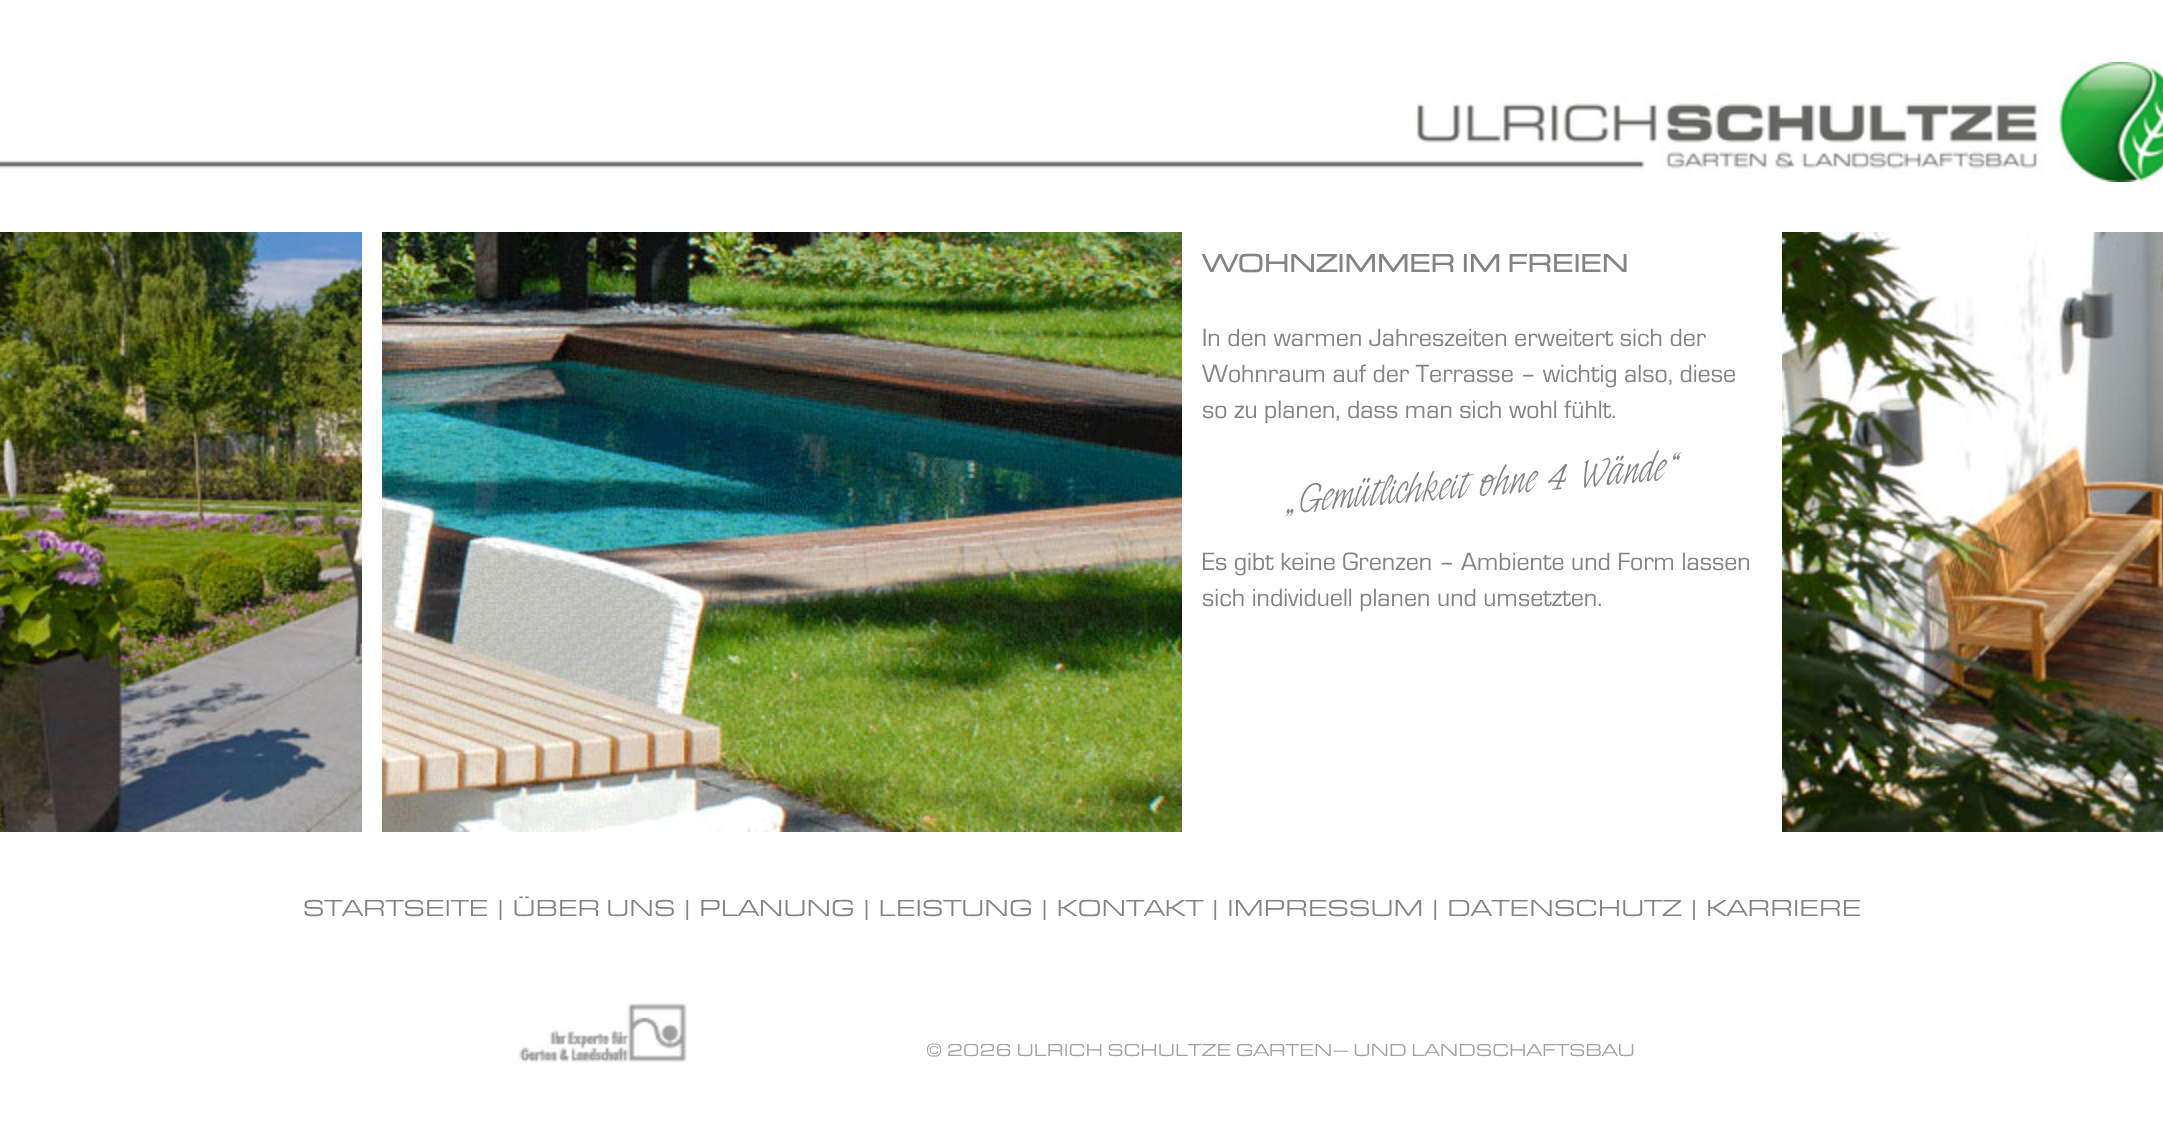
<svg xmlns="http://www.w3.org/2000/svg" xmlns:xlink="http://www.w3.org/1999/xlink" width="2163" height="1124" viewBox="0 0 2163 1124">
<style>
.cls-1{font:bold 26px 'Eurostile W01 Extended';fill:#838383}
.cls-2{font:26px 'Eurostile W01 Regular';fill:#838383}
.cls-3{font:40px 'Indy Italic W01';fill:#838383}
.cls-4{font:24px 'Eurostile W01 Extended';fill:#838383}
.cls-5{font:18px 'Eurostile W01 Extended';fill:#a0a0a0}
</style>
<rect width="100%" height="100%" fill="#ffffff"/>
<image xlink:href="image0.png" x="0" y="62" width="2163" height="120"/>
<image xlink:href="image1.png" x="0" y="232" width="362" height="600"/>
<image xlink:href="image2.png" x="382" y="232" width="800" height="600"/>
<image xlink:href="image3.png" x="1782" y="232" width="381" height="600"/>
<image xlink:href="image4.png" x="519" y="1003" width="168" height="59"/>
<text class="cls-1" x="1202" y="272">WOHNZIMMER IM FREIEN</text>
<text class="cls-2"><tspan x="1202" y="346">In den warmen Jahreszeiten erweitert sich der</tspan><tspan x="1202" y="382">Wohnraum auf der Terrasse – wichtig also, diese</tspan><tspan x="1202" y="418">so zu planen, dass man sich wohl fühlt.</tspan></text>
<text class="cls-3" x="1286" y="513" transform="rotate(-5 1286 513)">„Gemütlichkeit ohne 4 Wände“</text>
<text class="cls-2"><tspan x="1202" y="570">Es gibt keine Grenzen – Ambiente und Form lassen</tspan><tspan x="1202" y="606">sich individuell planen und umsetzten.</tspan></text>
<text class="cls-4" x="303" y="916">STARTSEITE | ÜBER UNS | PLANUNG | LEISTUNG | KONTAKT | IMPRESSUM | DATENSCHUTZ | KARRIERE</text>
<text class="cls-5" x="926" y="1056">© 2026 ULRICH SCHULTZE GARTEN– UND LANDSCHAFTSBAU</text>
</svg>
